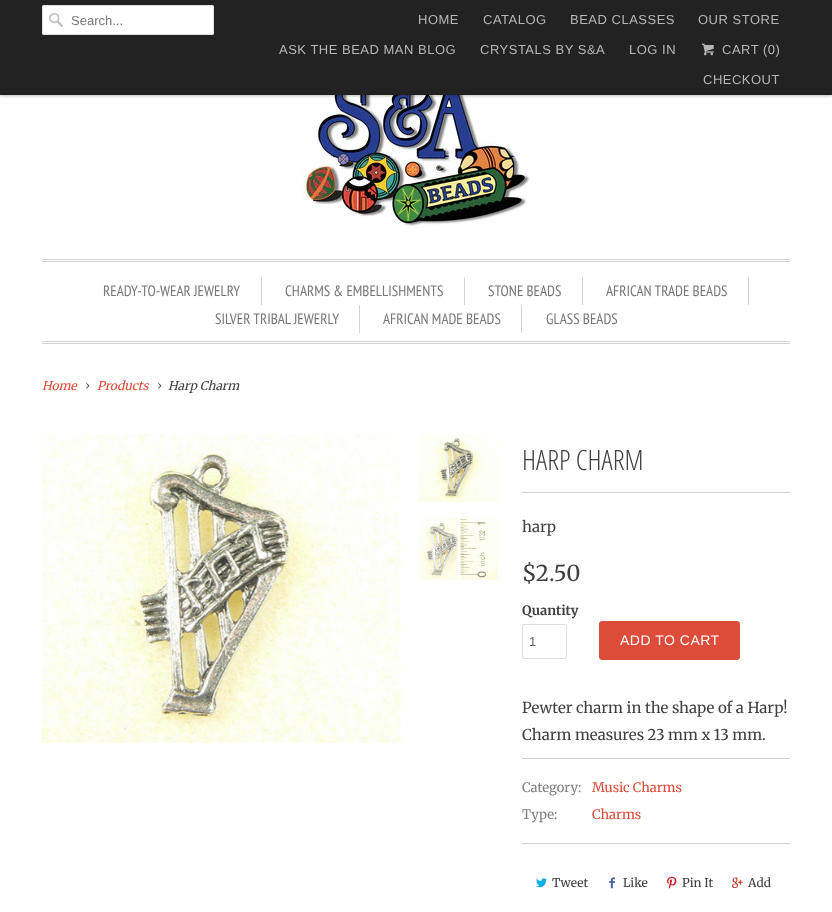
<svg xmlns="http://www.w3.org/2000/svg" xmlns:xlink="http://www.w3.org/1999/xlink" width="832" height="912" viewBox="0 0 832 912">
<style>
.cls-1{font:13px Liberation Sans;fill:#777777}
.cls-2{font:13px Liberation Sans;letter-spacing:0.5px;fill:#b6b6b6}
.cls-3{font:15px PT Sans Narrow;fill:#777777}
.cls-4{font:italic 12px Merriweather;fill:#dd4b39}
.cls-5{font:italic 12px Merriweather;fill:#404040}
.cls-6{font:300 28px Open Sans Condensed;fill:#404040}
.cls-7{font:15px Merriweather;fill:#404040}
.cls-8{font:22px Merriweather;fill:#404040}
.cls-9{font:bold 13px Merriweather;fill:#404040}
.cls-10{font:13px Liberation Sans;fill:#5f6a7d}
.cls-11{font:14px Liberation Sans;letter-spacing:0.5px;fill:#ffffff}
.cls-12{font:13px Merriweather;fill:#808080}
.cls-13{font:13px Merriweather;fill:#dd4b39}
.cls-14{font:12px Merriweather;fill:#404040}
</style>
<rect width="100%" height="100%" fill="#ffffff"/>
<image xlink:href="image2.png" x="303" y="95" width="227" height="131"/>
<rect fill="#000000" fill-opacity="0.25" filter="blur(1.5px)" x="0" y="1" width="832" height="95"/>
<rect fill="#222222" x="0" y="0" width="832" height="94"/>
<rect fill="#1f1f1f" x="0" y="94" width="832" height="1"/>
<rect fill="#ffffff" x="42" y="5" width="172" height="30" rx="2"/>
<image xlink:href="image0.png" x="49" y="13" width="14" height="14"/>
<rect fill="none" stroke="#dfdfdf" x="42.5" y="5.5" width="171" height="29" rx="1.5"/>
<image xlink:href="image1.png" x="702" y="43" width="12" height="13"/>
<rect fill="#d3d3d3" x="42" y="259" width="748" height="1"/>
<rect fill="#d3d3d3" x="42" y="261" width="748" height="1"/>
<rect fill="#d3d3d3" x="42" y="341" width="748" height="1"/>
<rect fill="#d3d3d3" x="42" y="343" width="748" height="1"/>
<rect fill="#d3d3d3" x="261" y="277" width="1" height="28"/>
<rect fill="#d3d3d3" x="464" y="277" width="1" height="28"/>
<rect fill="#d3d3d3" x="582" y="277" width="1" height="28"/>
<rect fill="#d3d3d3" x="748" y="277" width="1" height="28"/>
<rect fill="#d3d3d3" x="359" y="305" width="1" height="28"/>
<rect fill="#d3d3d3" x="521" y="305" width="1" height="28"/>
<image xlink:href="image3.png" x="86" y="383" width="4" height="6"/>
<image xlink:href="image3.png" x="158" y="383" width="4" height="6"/>
<image xlink:href="image4.png" x="42" y="434" width="359" height="309"/>
<image xlink:href="image5.png" x="419" y="434" width="79" height="68"/>
<image xlink:href="image6.png" x="419" y="517" width="79" height="63"/>
<rect fill="#d3d3d3" x="522" y="492" width="268" height="1"/>
<rect fill="none" stroke="#dfdfdf" x="522.5" y="624.5" width="44" height="34" rx="1.5"/>
<rect fill="#dd4b39" stroke="#dd4b39" x="599.5" y="621.5" width="140" height="38" rx="2.5"/>
<rect fill="#d3d3d3" x="522" y="758" width="268" height="1"/>
<rect fill="#d3d3d3" x="522" y="843" width="268" height="1"/>
<image xlink:href="image7.png" x="536" y="878" width="11" height="10"/>
<image xlink:href="image8.png" x="609" y="877" width="6" height="12"/>
<image xlink:href="image9.png" x="667" y="876" width="10" height="13"/>
<image xlink:href="image10.png" x="732" y="877" width="11" height="12"/>
<text class="cls-1" x="71" y="25">Search...</text>
<text class="cls-2" x="418" y="24">HOME</text>
<text class="cls-2" x="483" y="24">CATALOG</text>
<text class="cls-2" x="570" y="24">BEAD CLASSES</text>
<text class="cls-2" x="698" y="24">OUR STORE</text>
<text class="cls-2" x="279" y="54">ASK THE BEAD MAN BLOG</text>
<text class="cls-2" x="480" y="54">CRYSTALS BY S&amp;A</text>
<text class="cls-2" x="629" y="54">LOG IN</text>
<text class="cls-2" x="722" y="54">CART (0)</text>
<text class="cls-2" x="703" y="84">CHECKOUT</text>
<text class="cls-3" x="103" y="296">READY-TO-WEAR JEWELRY</text>
<text class="cls-3" x="285" y="296">CHARMS &amp; EMBELLISHMENTS</text>
<text class="cls-3" x="488" y="296">STONE BEADS</text>
<text class="cls-3" x="606" y="296">AFRICAN TRADE BEADS</text>
<text class="cls-3" x="215" y="324">SILVER TRIBAL JEWERLY</text>
<text class="cls-3" x="383" y="324">AFRICAN MADE BEADS</text>
<text class="cls-3" x="546" y="324">GLASS BEADS</text>
<text class="cls-4" x="42" y="390">Home</text>
<text class="cls-4" x="97" y="390">Products</text>
<text class="cls-5" x="168" y="390">Harp Charm</text>
<text class="cls-6" x="522" y="470">HARP CHARM</text>
<text class="cls-7" x="522" y="532">harp</text>
<text class="cls-8" x="522" y="581">$2.50</text>
<text class="cls-9" x="522" y="615">Quantity</text>
<text class="cls-10" x="529" y="646">1</text>
<text class="cls-11" x="620" y="645">ADD TO CART</text>
<text class="cls-7"><tspan x="522" y="713">Pewter charm in the shape of a Harp!</tspan><tspan x="522" y="740">Charm measures 23 mm x 13 mm.</tspan></text>
<text class="cls-12" x="522" y="792">Category:</text>
<text class="cls-13" x="592" y="792">Music Charms</text>
<text class="cls-12" x="522" y="819">Type:</text>
<text class="cls-13" x="592" y="819">Charms</text>
<text class="cls-14" x="552" y="887">Tweet</text>
<text class="cls-14" x="623" y="887">Like</text>
<text class="cls-14" x="682" y="887">Pin It</text>
<text class="cls-14" x="748" y="887">Add</text>
</svg>
